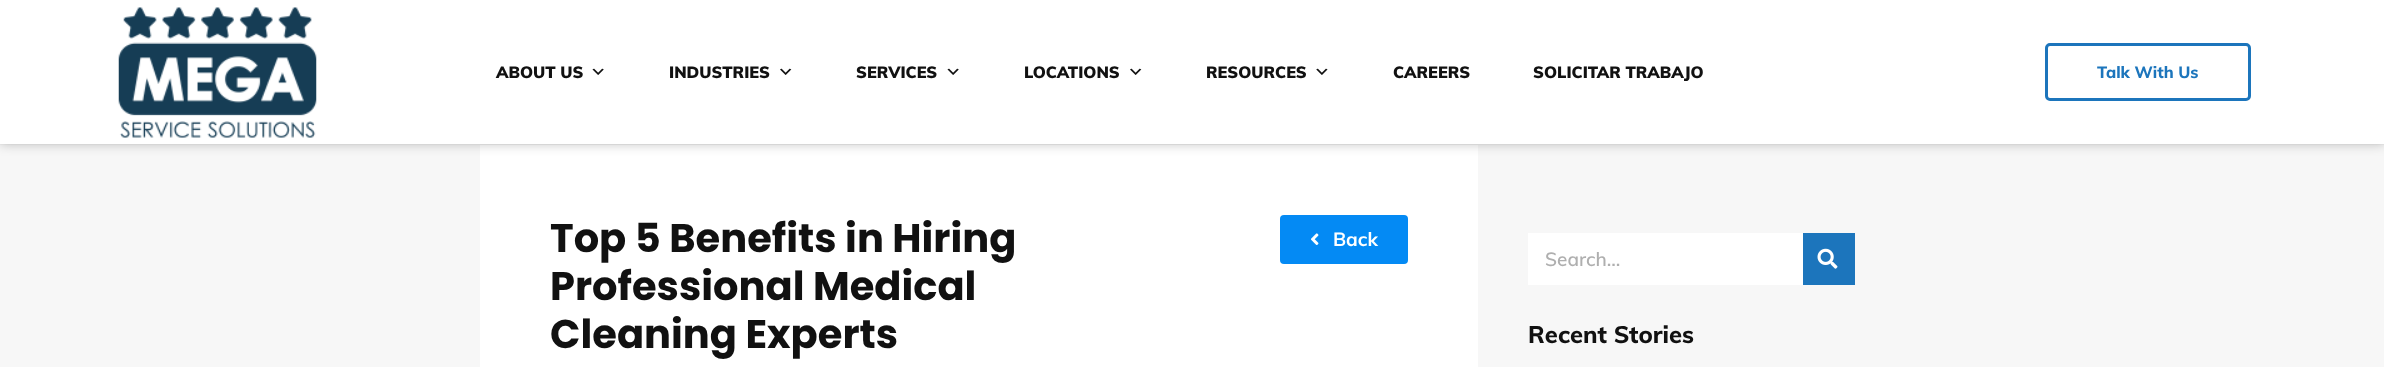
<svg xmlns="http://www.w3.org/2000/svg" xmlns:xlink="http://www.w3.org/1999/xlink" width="2384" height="367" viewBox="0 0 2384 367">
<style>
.cls-1{font:900 16.25px Muli;fill:#111111}
.cls-2{font:800 16.25px Muli;fill:#1c75bc}
.cls-3{font:bold 40px Poppins;fill:#111111}
.cls-4{font:bold 19px Muli;fill:#ffffff}
.cls-5{font:600 19px Muli;fill:#afafaf}
.cls-6{font:800 23.75px Muli;fill:#111111}
</style>
<rect width="100%" height="100%" fill="#f7f7f7"/>
<rect fill="#f1f1f1" x="0" y="144" width="2384" height="1"/>
<rect fill="#ffffff" x="480" y="145" width="998" height="222"/>
<rect fill="#000000" fill-opacity="0.24" filter="blur(6px)" x="0" y="0" width="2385" height="144"/>
<rect fill="#ffffff" x="0" y="0" width="2384" height="144"/>
<image xlink:href="image0.png" x="118" y="7" width="199" height="131"/>
<image xlink:href="image1.png" x="592" y="68" width="12" height="7"/>
<image xlink:href="image2.png" x="780" y="68" width="12" height="7"/>
<image xlink:href="image1.png" x="947" y="68" width="12" height="7"/>
<image xlink:href="image2.png" x="1130" y="68" width="12" height="7"/>
<image xlink:href="image3.png" x="1316" y="68" width="12" height="7"/>
<rect fill="none" stroke="#1c75bc" stroke-width="3" x="2046.5" y="44.5" width="203" height="55" rx="3.5"/>
<rect fill="#048af4" x="1280" y="215" width="128" height="49" rx="4"/>
<image xlink:href="image4.png" x="1311" y="233" width="8" height="12"/>
<rect fill="#ffffff" x="1528" y="233" width="275" height="52"/>
<rect fill="#1c75bc" x="1803" y="233" width="52" height="52"/>
<image xlink:href="image5.png" x="1817" y="248" width="21" height="21"/>
<text class="cls-1" x="496" y="78">ABOUT US</text>
<text class="cls-1" x="669" y="78">INDUSTRIES</text>
<text class="cls-1" x="856" y="78">SERVICES</text>
<text class="cls-1" x="1024" y="78">LOCATIONS</text>
<text class="cls-1" x="1206" y="78">RESOURCES</text>
<text class="cls-1" x="1393" y="78">CAREERS</text>
<text class="cls-1" x="1533" y="78">SOLICITAR TRABAJO</text>
<text class="cls-2" x="2097" y="78">Talk With Us</text>
<text class="cls-3"><tspan x="550" y="252">Top 5 Benefits in Hiring</tspan><tspan x="550" y="300">Professional Medical</tspan><tspan x="550" y="348">Cleaning Experts</tspan></text>
<text class="cls-4" x="1333" y="246">Back</text>
<text class="cls-5" x="1545" y="266">Search...</text>
<text class="cls-6" x="1528" y="343">Recent Stories</text>
</svg>
